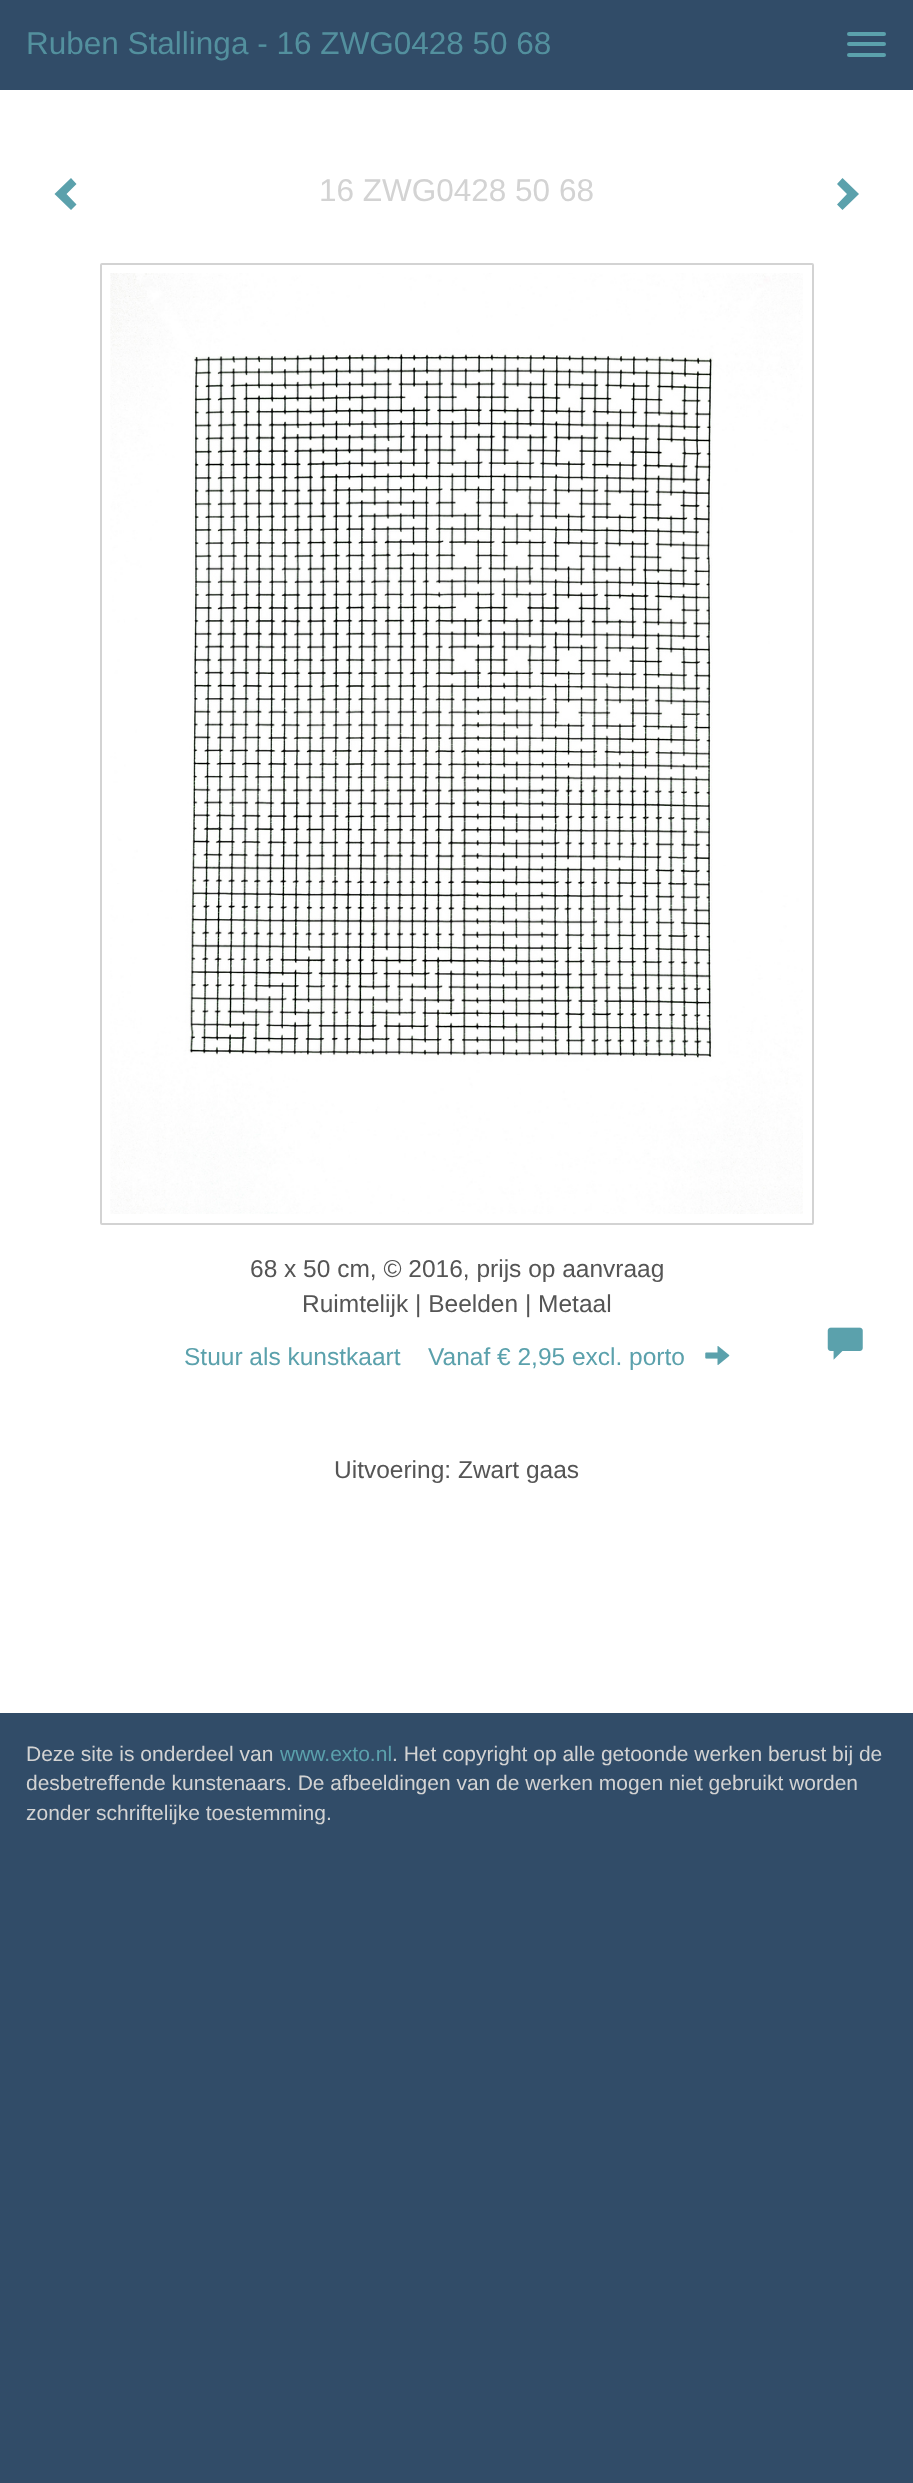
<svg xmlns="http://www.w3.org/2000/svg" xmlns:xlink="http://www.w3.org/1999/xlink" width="913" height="2483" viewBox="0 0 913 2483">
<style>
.cls-1{font:31.5px Liberation Sans;fill:#53909e}
.cls-2{font:31.5px Liberation Sans;fill:#d3d3d3}
.cls-3{font:24.5px Liberation Sans;fill:#555555}
.cls-4{font:24.5px Liberation Sans;fill:#5ba1ac}
.cls-5{font:21px Liberation Sans;fill:#d3d3d3}
.cls-6{font:21px Liberation Sans;fill:#5ba1ac}
</style>
<rect width="100%" height="100%" fill="#314c68"/>
<rect fill="#5ba1ac" x="847" y="32" width="39" height="4" rx="2"/>
<rect fill="#5ba1ac" x="847" y="42" width="39" height="4" rx="2"/>
<rect fill="#5ba1ac" x="847" y="53" width="39" height="4" rx="2"/>
<rect fill="#ffffff" x="0" y="90" width="913" height="1623"/>
<path fill="#5ba1ac" d="M76.5 184L66.5 194L76.5 204.5L71 210L54.5 194L71 178Z"/>
<path fill="#5ba1ac" d="M859 194L842.5 210L837 204.5L847 194L837 184L842.5 178Z"/>
<rect fill="none" stroke="#d3d3d3" stroke-width="2" x="101" y="264" width="712" height="960" rx="1"/>
<image xlink:href="image0.png" x="110" y="273" width="693" height="941"/>
<image xlink:href="image1.png" x="705" y="1346" width="25" height="19"/>
<image xlink:href="image2.png" x="827" y="1327" width="36" height="33"/>
<text class="cls-1" x="26" y="54">Ruben Stallinga - 16 ZWG0428 50 68</text>
<text class="cls-2" x="319" y="201">16 ZWG0428 50 68</text>
<text class="cls-3" x="250" y="1277">68 x 50 cm, © 2016, prijs op aanvraag</text>
<text class="cls-3" x="302" y="1312">Ruimtelijk | Beelden | Metaal</text>
<text class="cls-4" x="184" y="1365">Stuur als kunstkaart</text>
<text class="cls-4" x="428" y="1365">Vanaf € 2,95 excl. porto</text>
<text class="cls-3" x="334" y="1478">Uitvoering: Zwart gaas</text>
<text class="cls-5" x="26" y="1761">Deze site is onderdeel van</text>
<text class="cls-6" x="280" y="1761">www.exto.nl</text>
<text class="cls-5" x="392" y="1761">. Het copyright op alle getoonde werken berust bij de</text>
<text class="cls-5"><tspan x="26" y="1790">desbetreffende kunstenaars. De afbeeldingen van de werken mogen niet gebruikt worden</tspan><tspan x="26" y="1820">zonder schriftelijke toestemming.</tspan></text>
</svg>
